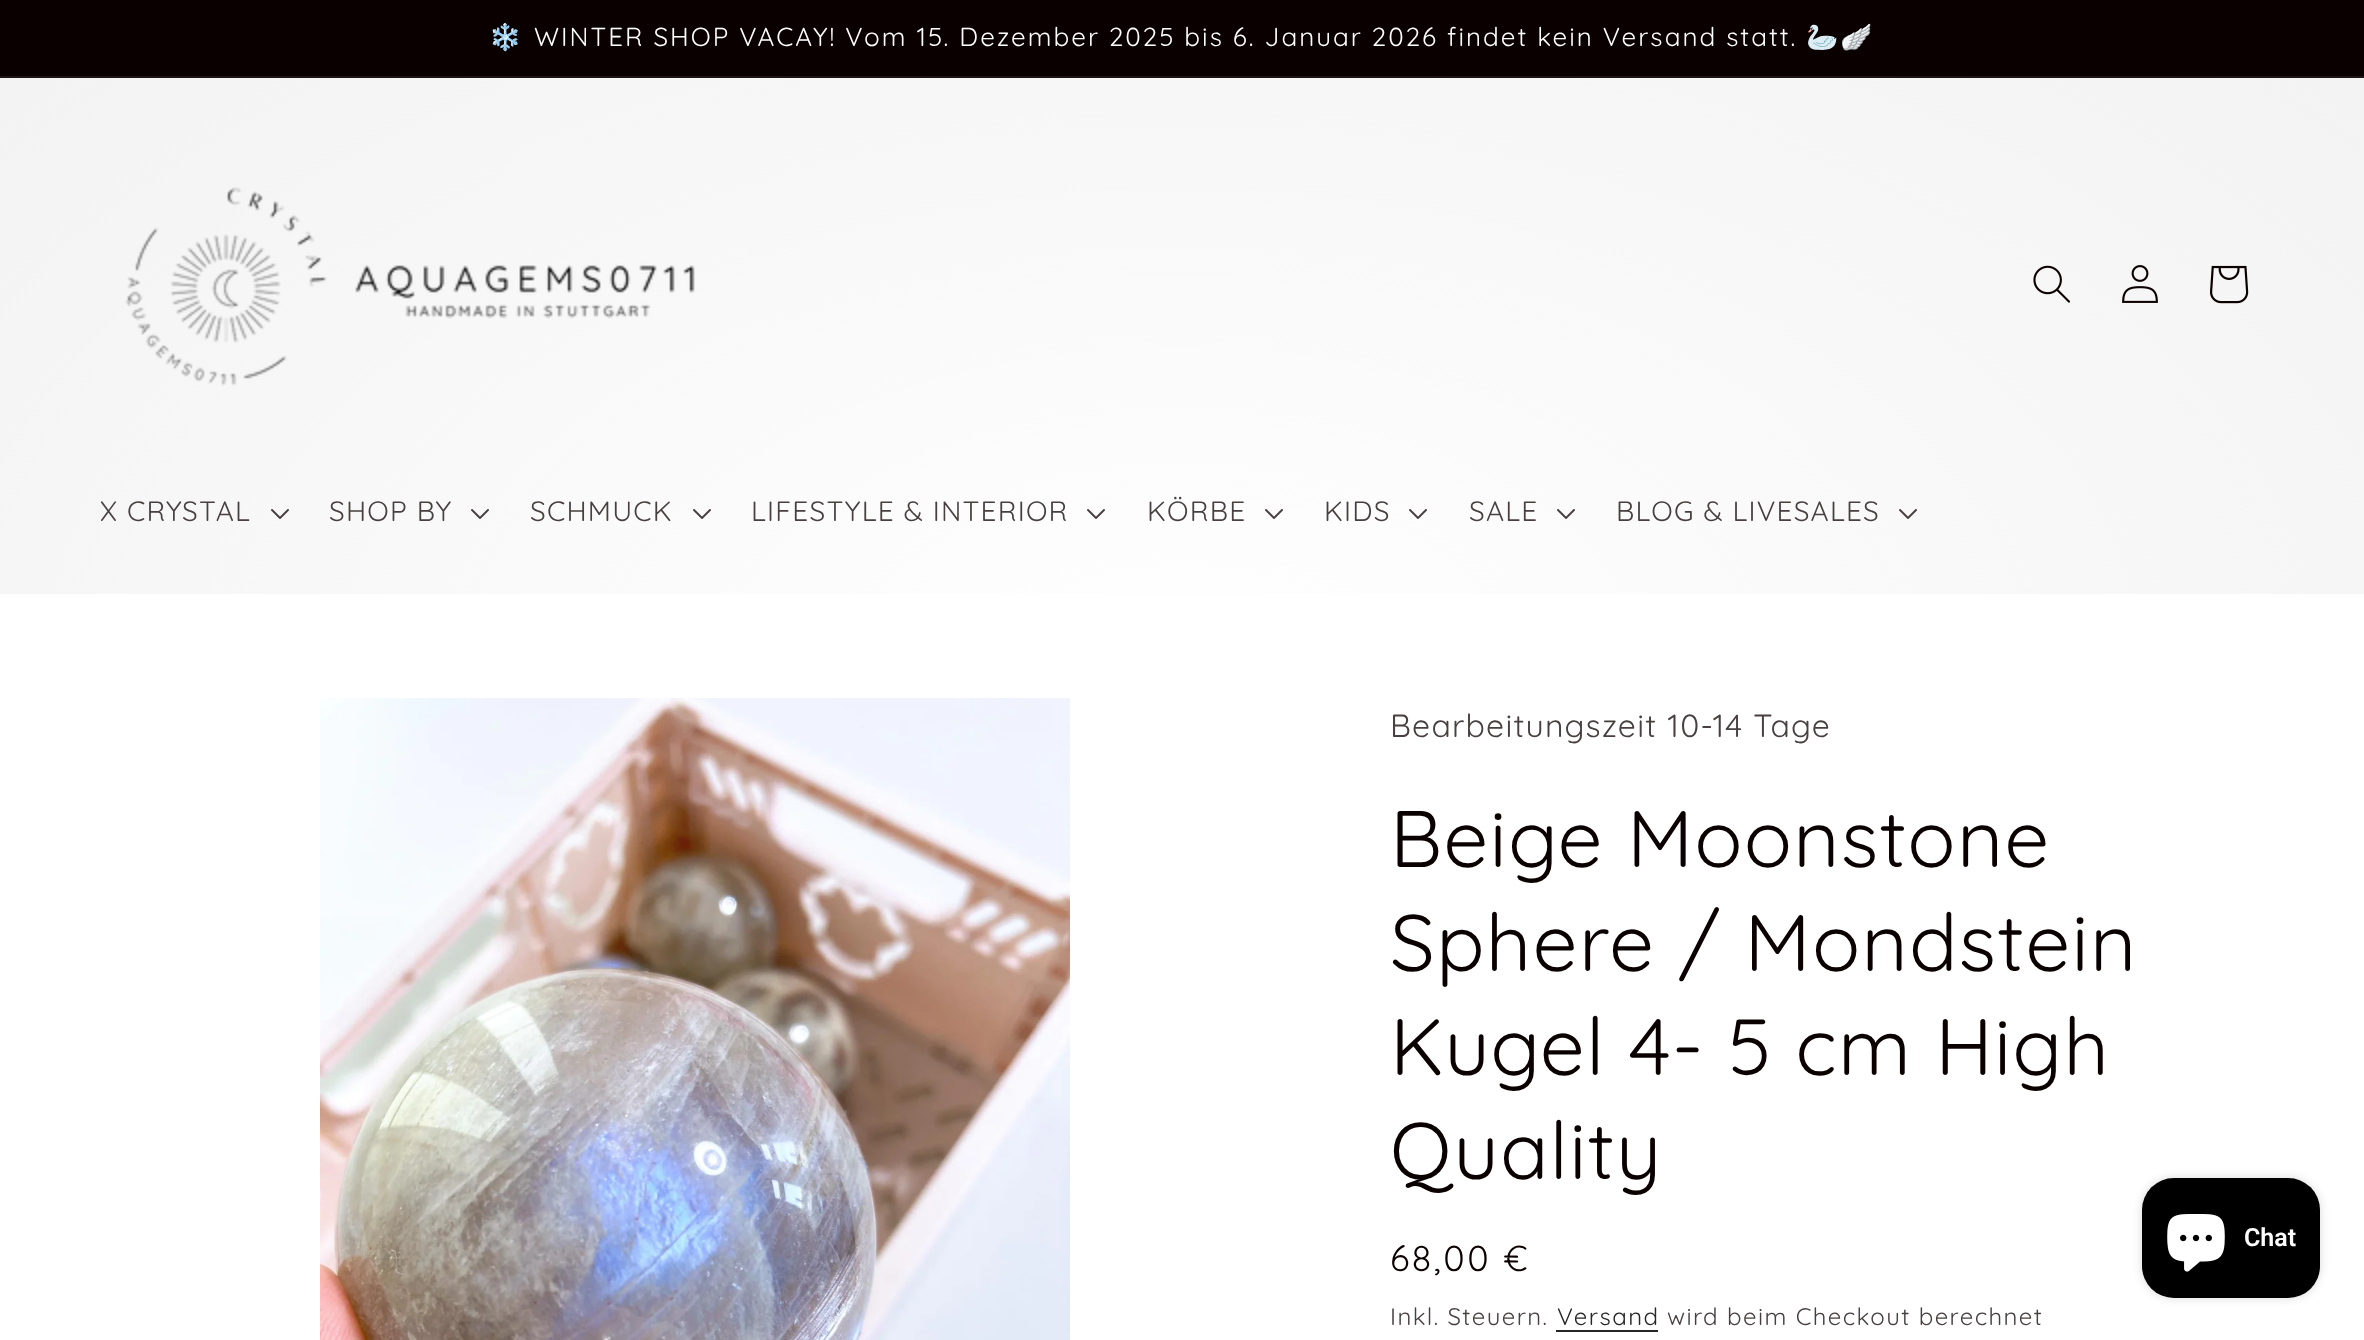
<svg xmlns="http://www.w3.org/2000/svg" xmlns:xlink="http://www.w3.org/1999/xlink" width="2364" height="1340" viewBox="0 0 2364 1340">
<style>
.cls-1{font:26px Noto Color Emoji;letter-spacing:2px;fill:#ffffff}
.cls-2{font:26px Quicksand;letter-spacing:2px;fill:#ffffff}
.cls-3{font:28px Quicksand;letter-spacing:1.2px;fill:#484040}
.cls-4{font:32px Quicksand;letter-spacing:1.2px;fill:#484040}
.cls-5{font:80px Quicksand;letter-spacing:1.2px;fill:#0b0000}
.cls-6{font:36px Quicksand;letter-spacing:2.5px;fill:#0b0000}
.cls-7{font:24px Quicksand;letter-spacing:1.4px;fill:#484040}
.cls-8{font:24px Quicksand;letter-spacing:1.4px;fill:#262626}
.cls-9{font:600 25px Roboto;fill:#ffffff}
</style>
<defs>
<radialGradient id="g1" gradientUnits="userSpaceOnUse" cx="0" cy="0" r="1" gradientTransform="matrix(1672 0 0 948 1182 670)"><stop offset="0" stop-color="#ffffff"/><stop offset="1" stop-color="#f2f2f2"/></radialGradient>
</defs>
<rect width="100%" height="100%" fill="#ffffff"/>
<rect fill="#0b0000" x="0" y="0" width="2364" height="76"/>
<rect fill="#1f1414" x="0" y="76" width="2364" height="2"/>
<rect fill="url(#g1)" x="0" y="78" width="2364" height="516"/>
<image xlink:href="image0.png" x="125" y="187" width="570" height="199"/>
<image xlink:href="image1.png" x="2033" y="265" width="37" height="38"/>
<image xlink:href="image2.png" x="2122" y="265" width="36" height="38"/>
<image xlink:href="image3.png" x="2210" y="265" width="39" height="39"/>
<image xlink:href="image4.png" x="271" y="509" width="18" height="10"/>
<image xlink:href="image5.png" x="471" y="509" width="18" height="10"/>
<image xlink:href="image6.png" x="693" y="509" width="18" height="10"/>
<image xlink:href="image7.png" x="1087" y="509" width="18" height="10"/>
<image xlink:href="image7.png" x="1265" y="509" width="18" height="10"/>
<image xlink:href="image8.png" x="1409" y="509" width="18" height="10"/>
<image xlink:href="image6.png" x="1557" y="509" width="18" height="10"/>
<image xlink:href="image5.png" x="1899" y="509" width="18" height="10"/>
<image xlink:href="image9.png" x="320" y="698" width="750" height="642"/>
<rect fill="#262626" x="1556" y="1330" width="102" height="2"/>
<rect fill="#000000" fill-opacity="0.15" filter="blur(5px)" x="2142" y="1178" width="178" height="120" rx="32"/>
<rect fill="#000000" x="2142" y="1178" width="178" height="120" rx="32"/>
<image xlink:href="image10.png" x="2167" y="1214" width="58" height="58"/>
<text class="cls-1" x="489" y="46">❄️</text>
<text class="cls-2" x="534" y="46" word-spacing="-0.1">WINTER SHOP VACAY! Vom 15. Dezember 2025 bis 6. Januar 2026 findet kein Versand statt.</text>
<text class="cls-1" x="1806" y="46">🦢🪽</text>
<text class="cls-3" x="100" y="521">X CRYSTAL</text>
<text class="cls-3" x="329" y="521">SHOP BY</text>
<text class="cls-3" x="530" y="521">SCHMUCK</text>
<text class="cls-3" x="751" y="521">LIFESTYLE &amp; INTERIOR</text>
<text class="cls-3" x="1147" y="521">KÖRBE</text>
<text class="cls-3" x="1324" y="521">KIDS</text>
<text class="cls-3" x="1469" y="521">SALE</text>
<text class="cls-3" x="1616" y="521">BLOG &amp; LIVESALES</text>
<text class="cls-4" x="1390" y="737">Bearbeitungszeit 10-14 Tage</text>
<text class="cls-5"><tspan x="1390" y="867">Beige Moonstone</tspan><tspan x="1390" y="971">Sphere / Mondstein</tspan><tspan x="1390" y="1075">Kugel 4- 5 cm High</tspan><tspan x="1390" y="1179">Quality</tspan></text>
<text class="cls-6" x="1390" y="1271">68,00 €</text>
<text class="cls-7" x="1390" y="1325">Inkl. Steuern.</text>
<text class="cls-8" x="1557" y="1325">Versand</text>
<text class="cls-7" x="1667" y="1325">wird beim Checkout berechnet</text>
<text class="cls-9" x="2244" y="1246">Chat</text>
</svg>
